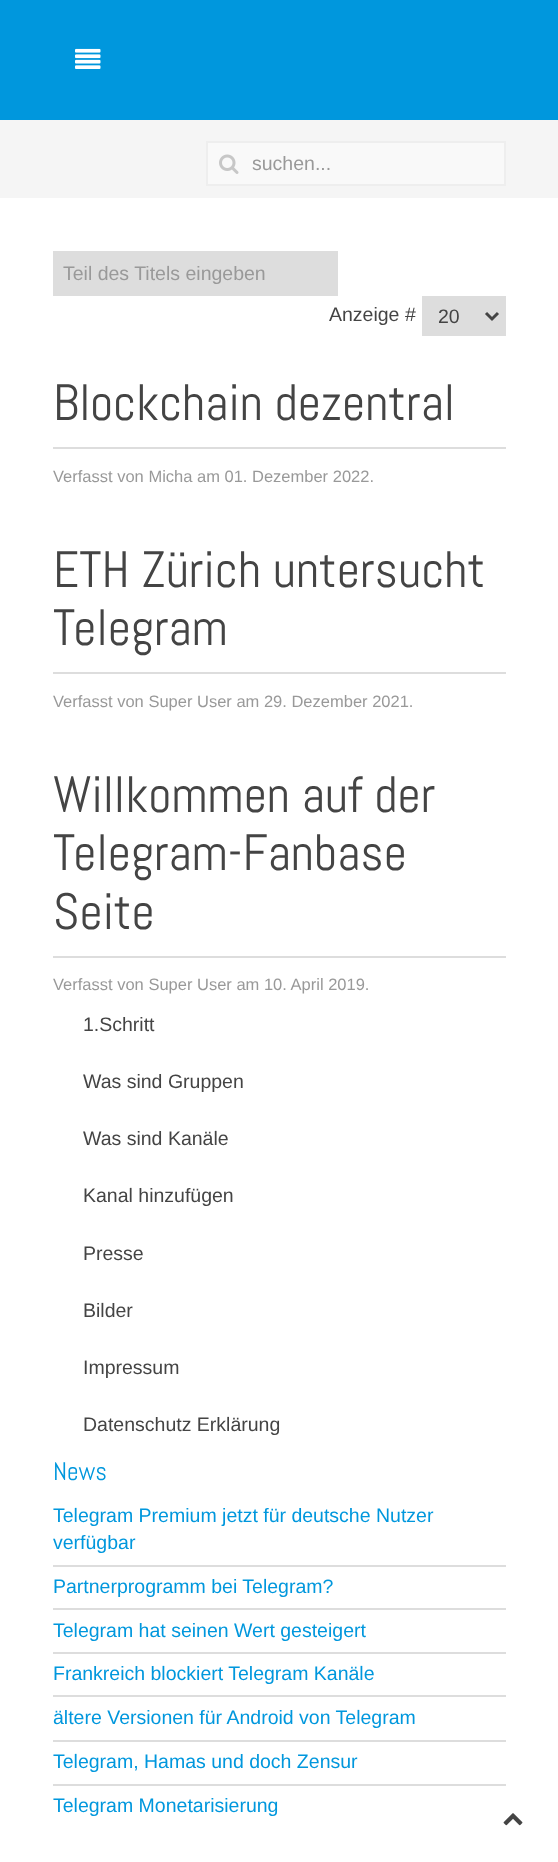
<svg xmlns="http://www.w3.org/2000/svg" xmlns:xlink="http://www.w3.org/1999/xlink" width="558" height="1862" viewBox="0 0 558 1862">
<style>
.cls-1{font:19.5px Liberation Sans;fill:#999999}
.cls-2{font:19.5px Liberation Sans;fill:#444444}
.cls-3{font:51px Abel;fill:#444444}
.cls-4{font:16.5px Liberation Sans;fill:#999999}
.cls-5{font:25.5px Abel;fill:#0097dd}
.cls-6{font:19.5px Liberation Sans;fill:#0097dd}
</style>
<rect width="100%" height="100%" fill="#ffffff"/>
<rect fill="#0097dd" x="0" y="0" width="558" height="120"/>
<image xlink:href="image0.png" x="75" y="48" width="26" height="21"/>
<rect fill="#f5f5f5" x="0" y="120" width="558" height="78"/>
<rect fill="#f9f9f9" stroke="#eeeeee" stroke-width="2" x="207" y="142" width="298" height="43"/>
<image xlink:href="image1.png" x="219" y="154" width="20" height="20"/>
<rect fill="#dddddd" x="53" y="251" width="285" height="45"/>
<rect fill="#dddddd" x="422" y="296" width="84" height="40"/>
<path fill="none" stroke="#444444" stroke-width="3" d="M486 313L492 319L498 313"/>
<rect fill="#dddddd" x="53" y="447" width="453" height="2"/>
<rect fill="#dddddd" x="53" y="672" width="453" height="2"/>
<rect fill="#dddddd" x="53" y="956" width="453" height="2"/>
<rect fill="#dddddd" x="53" y="1565" width="453" height="2"/>
<rect fill="#dddddd" x="53" y="1608" width="453" height="2"/>
<rect fill="#dddddd" x="53" y="1652" width="453" height="2"/>
<rect fill="#dddddd" x="53" y="1695" width="453" height="2"/>
<rect fill="#dddddd" x="53" y="1740" width="453" height="2"/>
<rect fill="#dddddd" x="53" y="1784" width="453" height="2"/>
<image xlink:href="image2.png" x="503" y="1813" width="20" height="13"/>
<text class="cls-1" x="252" y="170">suchen...</text>
<text class="cls-1" x="63" y="280">Teil des Titels eingeben</text>
<text class="cls-2" x="329" y="321">Anzeige #</text>
<text class="cls-2" x="438" y="323">20</text>
<text class="cls-3" x="53" y="420">Blockchain dezentral</text>
<text class="cls-4" x="53" y="482">Verfasst von Micha am 01. Dezember 2022.</text>
<text class="cls-3"><tspan x="53" y="587">ETH Zürich untersucht</tspan><tspan x="53" y="645">Telegram</tspan></text>
<text class="cls-4" x="53" y="707">Verfasst von Super User am 29. Dezember 2021.</text>
<text class="cls-3"><tspan x="53" y="812">Willkommen auf der</tspan><tspan x="53" y="870">Telegram-Fanbase</tspan><tspan x="53" y="929">Seite</tspan></text>
<text class="cls-4" x="53" y="990">Verfasst von Super User am 10. April 2019.</text>
<text class="cls-2" x="83" y="1031">1.Schritt</text>
<text class="cls-2" x="83" y="1088">Was sind Gruppen</text>
<text class="cls-2" x="83" y="1145">Was sind Kanäle</text>
<text class="cls-2" x="83" y="1202">Kanal hinzufügen</text>
<text class="cls-2" x="83" y="1260">Presse</text>
<text class="cls-2" x="83" y="1317">Bilder</text>
<text class="cls-2" x="83" y="1374">Impressum</text>
<text class="cls-2" x="83" y="1431">Datenschutz Erklärung</text>
<text class="cls-5" x="53" y="1480">News</text>
<text class="cls-6"><tspan x="53" y="1522">Telegram Premium jetzt für deutsche Nutzer</tspan><tspan x="53" y="1549">verfügbar</tspan></text>
<text class="cls-6" x="53" y="1593">Partnerprogramm bei Telegram?</text>
<text class="cls-6" x="53" y="1637">Telegram hat seinen Wert gesteigert</text>
<text class="cls-6" x="53" y="1680">Frankreich blockiert Telegram Kanäle</text>
<text class="cls-6" x="53" y="1724">ältere Versionen für Android von Telegram</text>
<text class="cls-6" x="53" y="1768">Telegram, Hamas und doch Zensur</text>
<text class="cls-6" x="53" y="1812">Telegram Monetarisierung</text>
</svg>
